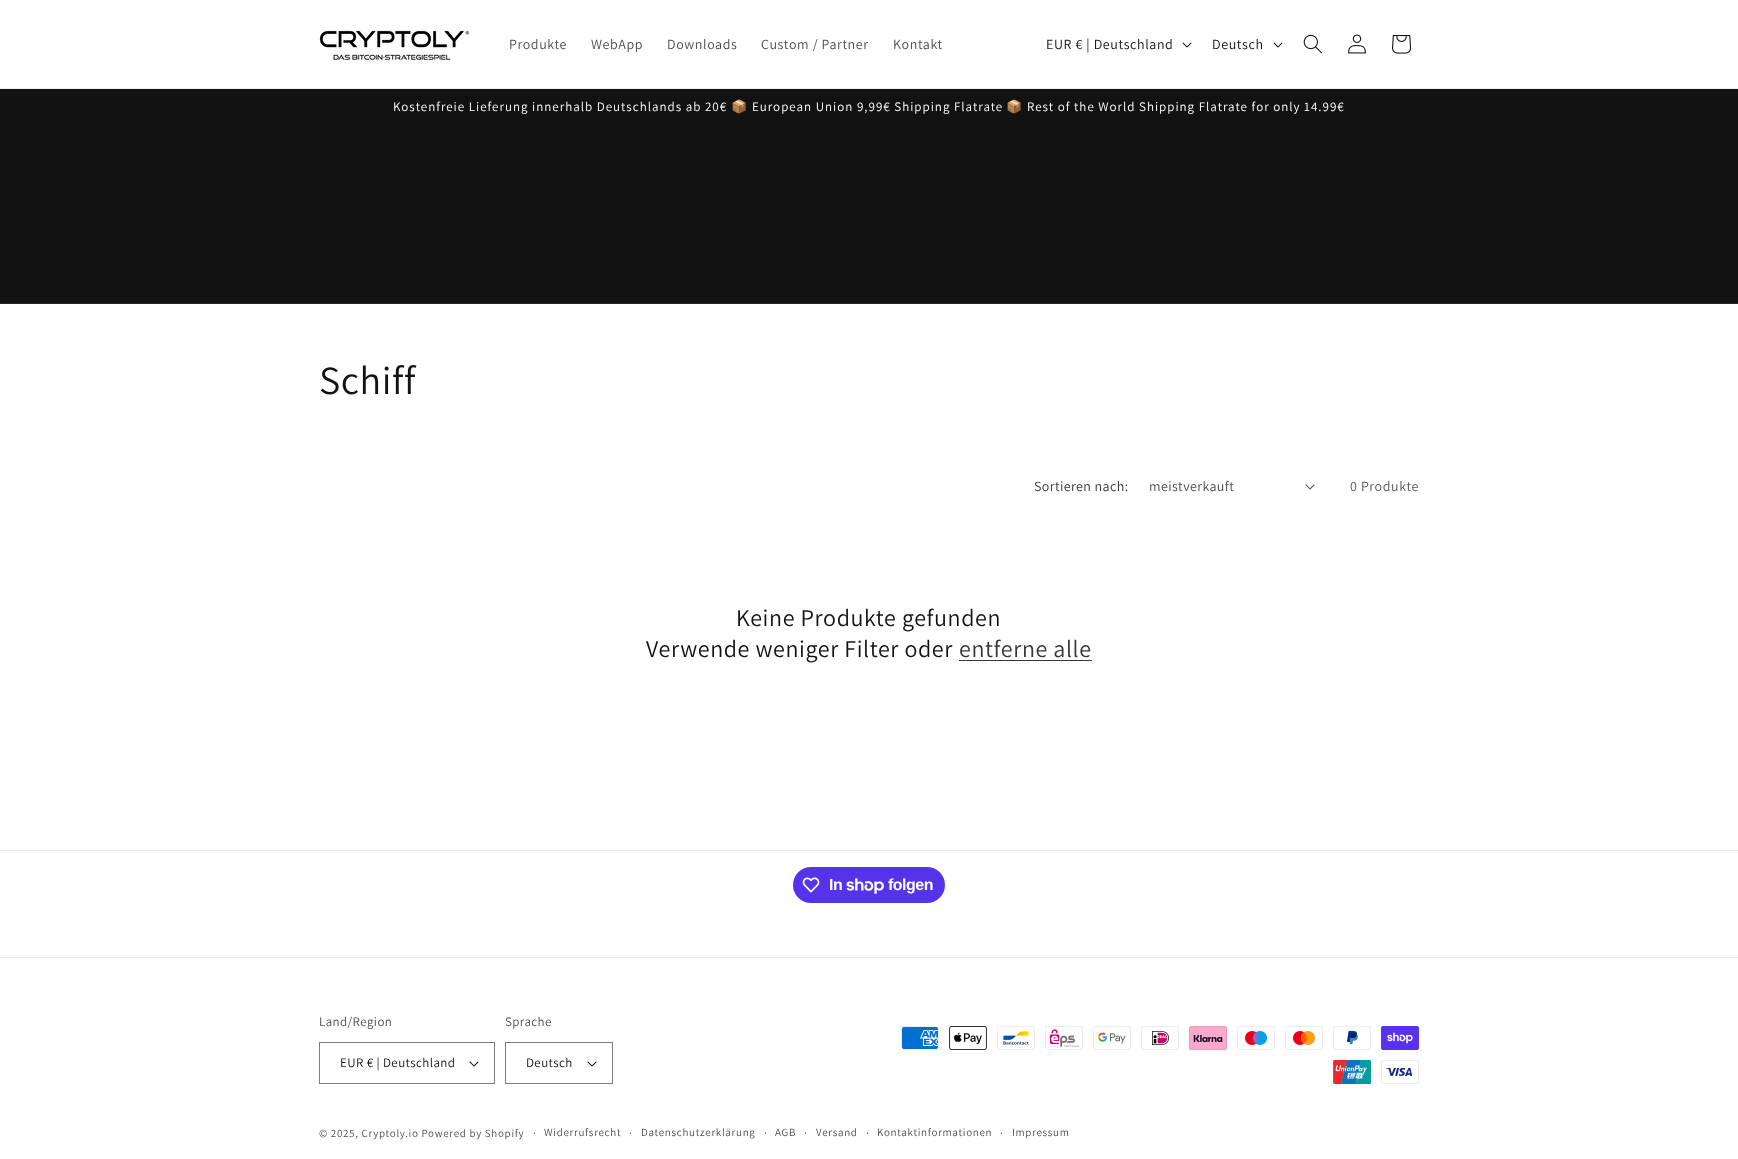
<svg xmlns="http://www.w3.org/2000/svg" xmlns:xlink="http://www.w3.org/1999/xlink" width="1738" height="1159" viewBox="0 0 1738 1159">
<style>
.cls-1{font:14px Assistant;letter-spacing:0.6px;fill:#4d4d4d}
.cls-2{font:14px Assistant;letter-spacing:0.6px;fill:#121212}
.cls-3{font:13px Assistant;letter-spacing:1px;fill:#ffffff}
.cls-4{font:13px Noto Color Emoji;letter-spacing:1px;fill:#ffffff}
.cls-5{font:40px Assistant;letter-spacing:0.6px;fill:#121212}
.cls-6{font:14px Assistant;letter-spacing:0.4px;fill:#363636}
.cls-7{font:14px Assistant;letter-spacing:0.4px;fill:#4d4d4d}
.cls-8{font:14px Assistant;letter-spacing:0.6px;fill:#595959}
.cls-9{font:24px Assistant;letter-spacing:0.6px;fill:#121212}
.cls-10{font:24px Assistant;letter-spacing:0.6px;fill:#363636}
.cls-11{font:bold 16px Liberation Sans;letter-spacing:-0.5px;fill:#ffffff}
.cls-12{font:13px Assistant;letter-spacing:0.4px;fill:#4d4d4d}
.cls-13{font:13px Assistant;letter-spacing:0.4px;fill:#121212}
.cls-14{font:11px Assistant;letter-spacing:0.7px;fill:#4d4d4d}
.cls-15{font:12px Assistant;letter-spacing:0.7px;fill:#4d4d4d}
</style>
<rect width="100%" height="100%" fill="#ffffff"/>
<rect fill="#ececec" x="0" y="88" width="1738" height="1"/>
<image xlink:href="image0.png" x="319" y="30" width="150" height="30"/>
<image xlink:href="image1.png" x="1182" y="42" width="10" height="6"/>
<image xlink:href="image1.png" x="1273" y="42" width="10" height="6"/>
<image xlink:href="image2.png" x="1303" y="34" width="19" height="20"/>
<image xlink:href="image3.png" x="1348" y="34" width="18" height="20"/>
<image xlink:href="image4.png" x="1392" y="35" width="20" height="19"/>
<rect fill="#121212" x="0" y="89" width="1738" height="214"/>
<rect fill="#252525" x="0" y="303" width="1738" height="1"/>
<image xlink:href="image5.png" x="1305" y="484" width="10" height="6"/>
<rect fill="#363636" x="959" y="660" width="133" height="1"/>
<rect fill="#ececec" x="0" y="850" width="1738" height="1"/>
<rect fill="#5433eb" x="793" y="867" width="152" height="36" rx="18"/>
<image xlink:href="image6.png" x="802" y="877" width="18" height="16"/>
<image xlink:href="image7.png" x="846" y="878" width="38" height="16"/>
<rect fill="#ececec" x="0" y="957" width="1738" height="1"/>
<image xlink:href="image1.png" x="469" y="1061" width="10" height="6"/>
<rect fill="none" stroke="#7d7d7d" x="319.5" y="1042.5" width="175" height="41"/>
<image xlink:href="image1.png" x="587" y="1061" width="10" height="6"/>
<rect fill="none" stroke="#7d7d7d" x="505.5" y="1042.5" width="107" height="41"/>
<image xlink:href="image8.png" x="901" y="1026" width="38" height="24"/>
<image xlink:href="image9.png" x="949" y="1026" width="38" height="24"/>
<image xlink:href="image10.png" x="997" y="1026" width="38" height="24"/>
<image xlink:href="image11.png" x="1045" y="1026" width="38" height="24"/>
<image xlink:href="image12.png" x="1093" y="1026" width="38" height="24"/>
<image xlink:href="image13.png" x="1141" y="1026" width="38" height="24"/>
<image xlink:href="image14.png" x="1189" y="1026" width="38" height="24"/>
<image xlink:href="image15.png" x="1237" y="1026" width="38" height="24"/>
<image xlink:href="image16.png" x="1285" y="1026" width="38" height="24"/>
<image xlink:href="image17.png" x="1333" y="1026" width="38" height="24"/>
<image xlink:href="image18.png" x="1381" y="1026" width="38" height="24"/>
<image xlink:href="image19.png" x="1333" y="1060" width="38" height="24"/>
<image xlink:href="image20.png" x="1381" y="1060" width="38" height="24"/>
<text class="cls-1" x="509" y="49">Produkte</text>
<text class="cls-1" x="591" y="49">WebApp</text>
<text class="cls-1" x="667" y="49">Downloads</text>
<text class="cls-1" x="761" y="49">Custom / Partner</text>
<text class="cls-1" x="893" y="49">Kontakt</text>
<text class="cls-2" x="1046" y="49">EUR € | Deutschland</text>
<text class="cls-2" x="1212" y="49">Deutsch</text>
<text class="cls-3" x="393" y="111">Kostenfreie Lieferung innerhalb Deutschlands ab 20€</text>
<text class="cls-4" x="731" y="111">📦</text>
<text class="cls-3" x="752" y="111">European Union 9,99€ Shipping Flatrate</text>
<text class="cls-4" x="1006" y="111">📦</text>
<text class="cls-3" x="1027" y="111">Rest of the World Shipping Flatrate for only 14.99€</text>
<text class="cls-5" x="319" y="394">Schiff</text>
<text class="cls-6" x="1034" y="491">Sortieren nach:</text>
<text class="cls-7" x="1149" y="491">meistverkauft</text>
<text class="cls-8" x="1350" y="491">0 Produkte</text>
<text class="cls-9" x="736" y="626">Keine Produkte gefunden</text>
<text class="cls-9" x="646" y="657">Verwende weniger Filter oder</text>
<text class="cls-10" x="959" y="657">entferne alle</text>
<text class="cls-11" x="829" y="890">In</text>
<text class="cls-11" x="888" y="890">folgen</text>
<text class="cls-12" x="319" y="1026">Land/Region</text>
<text class="cls-13" x="340" y="1067">EUR € | Deutschland</text>
<text class="cls-12" x="505" y="1026">Sprache</text>
<text class="cls-13" x="526" y="1067">Deutsch</text>
<text class="cls-14" x="319" y="1137">© 2025, Cryptoly.io Powered by Shopify</text>
<text class="cls-15" x="533" y="1137">·</text>
<text class="cls-14" x="544" y="1136">Widerrufsrecht</text>
<text class="cls-15" x="629" y="1137">·</text>
<text class="cls-14" x="641" y="1136">Datenschutzerklärung</text>
<text class="cls-15" x="764" y="1137">·</text>
<text class="cls-14" x="775" y="1136">AGB</text>
<text class="cls-15" x="804" y="1137">·</text>
<text class="cls-14" x="816" y="1136">Versand</text>
<text class="cls-15" x="866" y="1137">·</text>
<text class="cls-14" x="877" y="1136">Kontaktinformationen</text>
<text class="cls-15" x="1000" y="1137">·</text>
<text class="cls-14" x="1012" y="1136">Impressum</text>
</svg>
